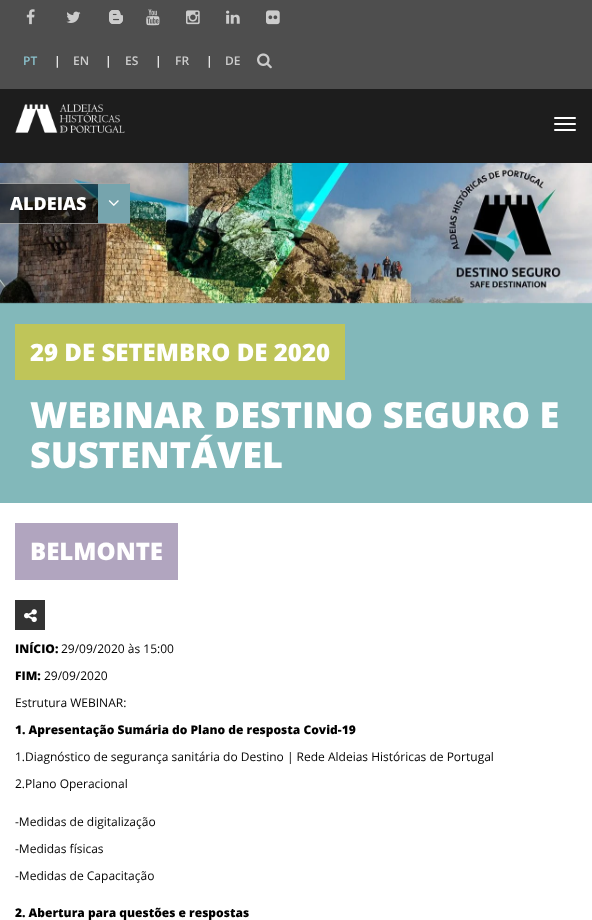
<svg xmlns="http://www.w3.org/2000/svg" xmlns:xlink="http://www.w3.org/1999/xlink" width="592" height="920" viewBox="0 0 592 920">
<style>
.cls-1{font:600 12px Open Sans;fill:#8bc2cd}
.cls-2{font:600 12px Open Sans;fill:#ffffff}
.cls-3{font:600 12px Open Sans;fill:#cccccc}
.cls-4{font:800 18px Open Sans;fill:#ffffff}
.cls-5{font:800 24px Open Sans;fill:#ffffff}
.cls-6{font:800 36px Open Sans;fill:#ffffff}
.cls-7{font:800 12px Open Sans;fill:#000000}
.cls-8{font:12px Open Sans;fill:#000000}
</style>
<rect width="100%" height="100%" fill="#ffffff"/>
<rect fill="#4e4e4e" x="0" y="0" width="592" height="89"/>
<image xlink:href="image0.png" x="26" y="9" width="9" height="16"/>
<image xlink:href="image1.png" x="66" y="11" width="15" height="12"/>
<image xlink:href="image2.png" x="109" y="10" width="14" height="14"/>
<image xlink:href="image3.png" x="146" y="9" width="14" height="17"/>
<image xlink:href="image4.png" x="186" y="10" width="14" height="15"/>
<image xlink:href="image5.png" x="226" y="10" width="14" height="14"/>
<image xlink:href="image6.png" x="266" y="10" width="14" height="15"/>
<image xlink:href="image7.png" x="257" y="53" width="15" height="16"/>
<rect fill="#1d1d1d" x="0" y="89" width="592" height="74"/>
<image xlink:href="image8.png" x="15" y="104" width="110" height="29"/>
<rect fill="#ffffff" x="554" y="117" width="22" height="2" rx="1"/>
<rect fill="#ffffff" x="554" y="123" width="22" height="2" rx="1"/>
<rect fill="#ffffff" x="554" y="129" width="22" height="2" rx="1"/>
<rect fill="#82b8ba" x="0" y="302" width="592" height="201"/>
<image xlink:href="image10.png" x="0" y="163" width="592" height="141"/>
<rect fill="#000000" fill-opacity="0.55" x="0" y="183" width="130" height="41"/>
<path fill="#ffffff" fill-opacity="0.5" d="M0 183H130L129 184H0Z"/>
<path fill="#ffffff" fill-opacity="0.5" d="M130 183V224L129 223V184Z"/>
<path fill="#ffffff" fill-opacity="0.5" d="M130 224H0V223H129Z"/>
<rect fill="#76a4ad" x="98" y="184" width="32" height="39"/>
<image xlink:href="image9.png" x="108" y="200" width="11" height="6"/>
<rect fill="#bfc559" x="15" y="324" width="330" height="56"/>
<rect fill="#b1a5bf" x="15" y="523" width="163" height="57"/>
<rect fill="#333333" x="15" y="600" width="30" height="30"/>
<image xlink:href="image11.png" x="24" y="609" width="13" height="14"/>
<text class="cls-1" x="23" y="65">PT</text>
<text class="cls-2" x="54" y="65">|</text>
<text class="cls-3" x="73" y="65">EN</text>
<text class="cls-2" x="105" y="65">|</text>
<text class="cls-3" x="125" y="65">ES</text>
<text class="cls-2" x="155" y="65">|</text>
<text class="cls-3" x="175" y="65">FR</text>
<text class="cls-2" x="206" y="65">|</text>
<text class="cls-3" x="225" y="65">DE</text>
<text class="cls-4" x="10" y="210">ALDEIAS</text>
<text class="cls-5" x="30" y="361">29 DE SETEMBRO DE 2020</text>
<text class="cls-6"><tspan x="30" y="428">WEBINAR DESTINO SEGURO E</tspan><tspan x="30" y="468">SUSTENTÁVEL</tspan></text>
<text class="cls-5" x="30" y="560">BELMONTE</text>
<text class="cls-7" x="15" y="653">INÍCIO:</text>
<text class="cls-8" x="61" y="653">29/09/2020 às 15:00</text>
<text class="cls-7" x="15" y="680">FIM:</text>
<text class="cls-8" x="44" y="680">29/09/2020</text>
<text class="cls-8" x="15" y="707">Estrutura WEBINAR:</text>
<text class="cls-7" x="15" y="734">1. Apresentação Sumária do Plano de resposta Covid-19</text>
<text class="cls-8" x="15" y="761">1.Diagnóstico de segurança sanitária do Destino | Rede Aldeias Históricas de Portugal</text>
<text class="cls-8" x="15" y="788">2.Plano Operacional</text>
<text class="cls-8" x="15" y="826">-Medidas de digitalização</text>
<text class="cls-8" x="15" y="853">-Medidas físicas</text>
<text class="cls-8" x="15" y="880">-Medidas de Capacitação</text>
<text class="cls-7" x="15" y="917">2. Abertura para questões e respostas</text>
</svg>
